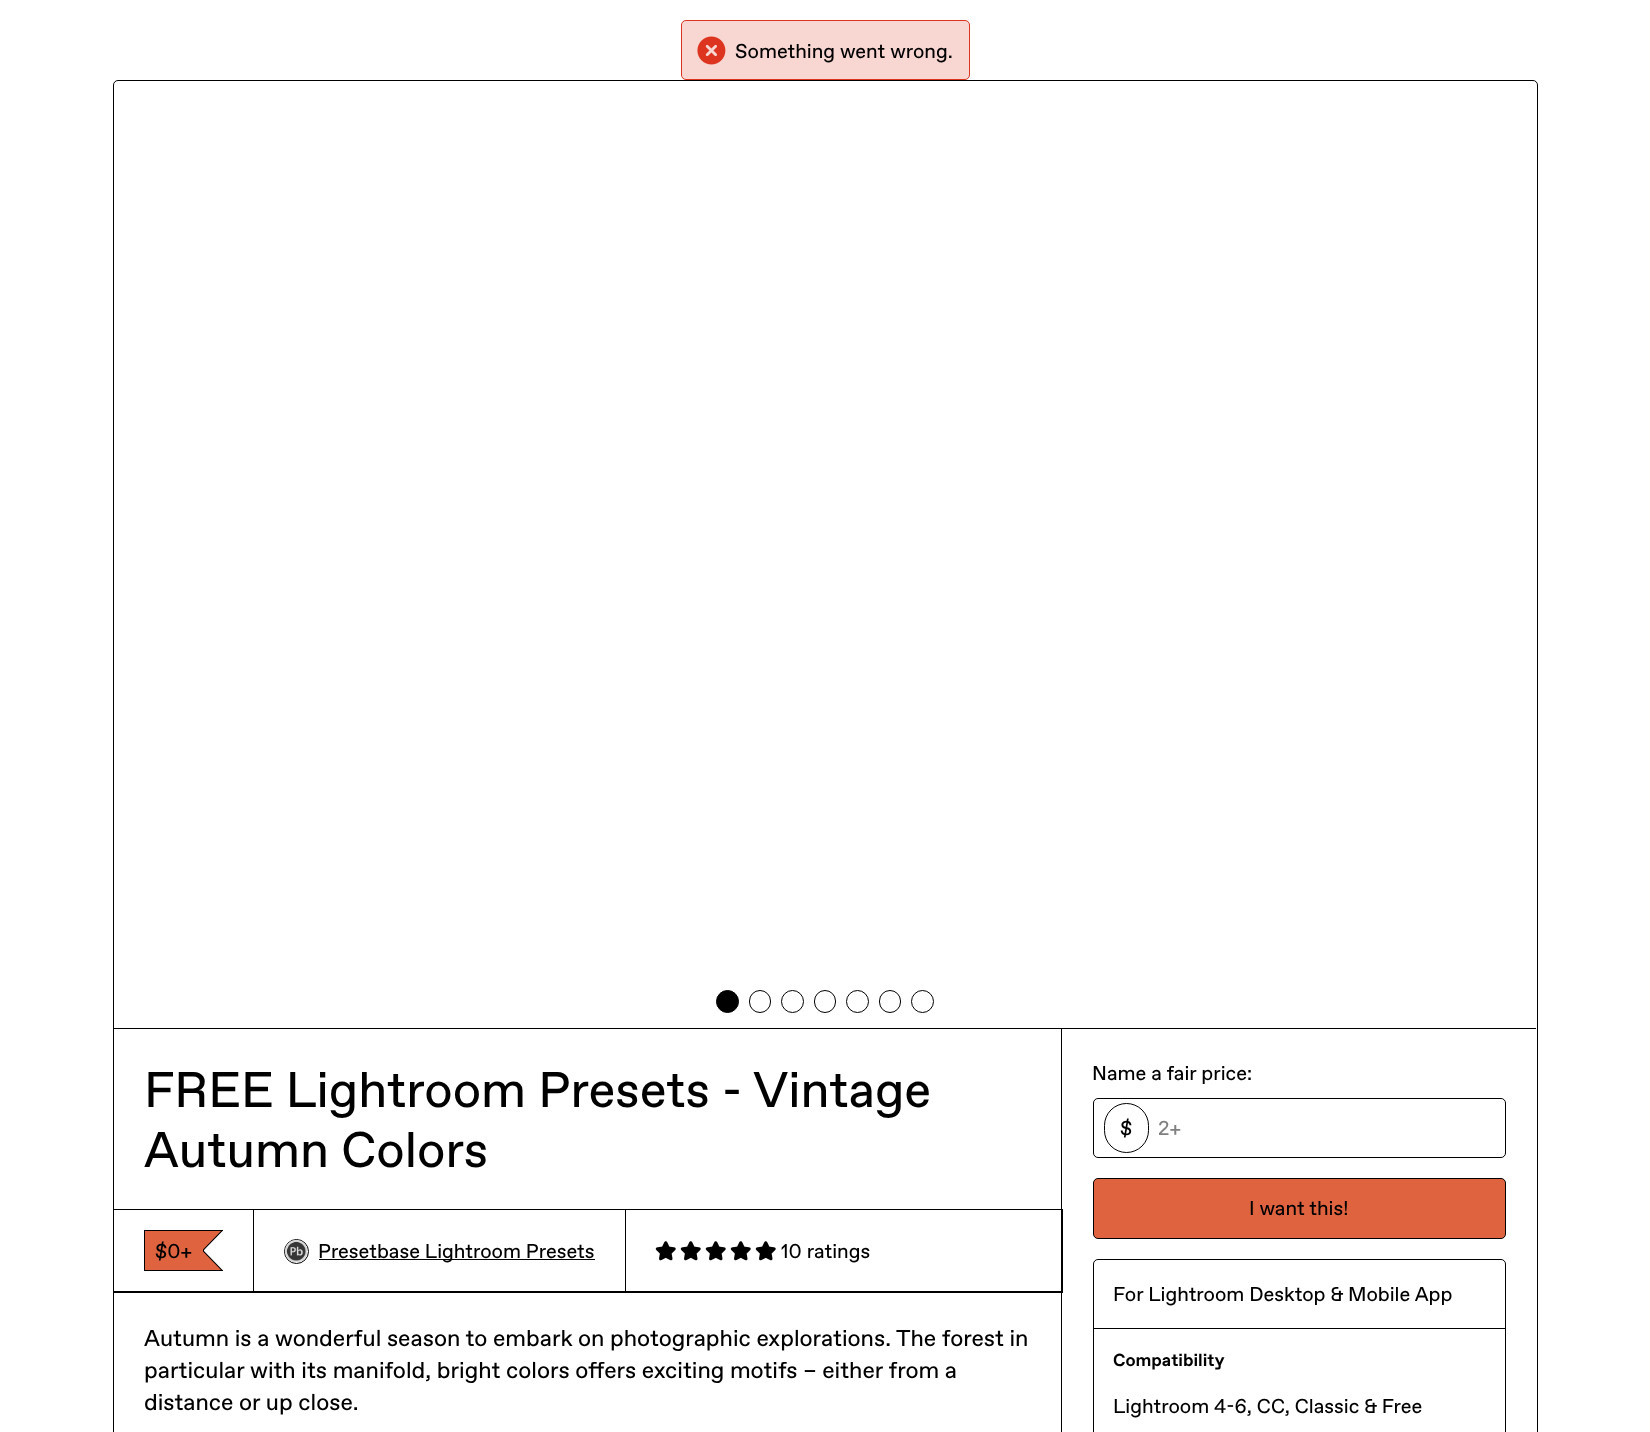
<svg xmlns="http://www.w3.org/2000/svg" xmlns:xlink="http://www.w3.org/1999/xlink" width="1650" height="1432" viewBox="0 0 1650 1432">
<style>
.cls-1{font:20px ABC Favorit;fill:#000000}
.cls-2{font:50px ABC Favorit;fill:#000000}
.cls-3{font:23px ABC Favorit;fill:#000000}
.cls-4{font:20px ABC Favorit;fill:#808080}
.cls-5{font:bold 17.5px ABC Favorit;fill:#000000}
</style>
<rect width="100%" height="100%" fill="#ffffff"/>
<rect fill="#f8d6d2" stroke="#dc341e" x="681.5" y="20.5" width="288" height="59" rx="4.5"/>
<image xlink:href="image0.png" x="697" y="36" width="29" height="29"/>
<rect fill="none" stroke="#000000" x="113.5" y="80.5" width="1424" height="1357" rx="4.5"/>
<rect fill="#000000" x="114" y="1028" width="1422" height="1"/>
<circle fill="#000000" stroke="#000000" cx="727.5" cy="1001.5" r="11"/>
<rect fill="none" stroke="#000000" x="749.5" y="990.5" width="21" height="22" rx="10.5"/>
<circle fill="none" stroke="#000000" cx="792.5" cy="1001.5" r="11"/>
<rect fill="none" stroke="#000000" x="814.5" y="990.5" width="21" height="22" rx="10.5"/>
<circle fill="none" stroke="#000000" cx="857.5" cy="1001.5" r="11"/>
<rect fill="none" stroke="#000000" x="879.5" y="990.5" width="21" height="22" rx="10.5"/>
<circle fill="none" stroke="#000000" cx="922.5" cy="1001.5" r="11"/>
<rect fill="#000000" x="1061" y="1029" width="1" height="403"/>
<rect fill="#000000" x="114" y="1291" width="947" height="1"/>
<rect fill="none" stroke="#000000" x="113.5" y="1209.5" width="140" height="83"/>
<rect fill="#000000" x="144" y="1230" width="79" height="1"/>
<rect fill="#000000" x="144" y="1270" width="79" height="1"/>
<rect fill="#000000" x="144" y="1230" width="1" height="41"/>
<rect fill="#e06340" x="145" y="1231" width="58" height="39"/>
<path fill="#000000" d="M202.5 1231H222.5L204 1250ZM222.5 1270H202.5L204 1251Z"/>
<rect fill="#000000" x="203" y="1248" width="1" height="5"/>
<path fill="#e06340" d="M201 1231H221L202.5 1250ZM221 1270H201L202.5 1251Z"/>
<rect fill="none" stroke="#000000" x="253.5" y="1209.5" width="372" height="83"/>
<circle fill="none" stroke="#000000" cx="296.5" cy="1251.5" r="12"/>
<image xlink:href="image1.png" x="285" y="1240" width="23" height="23"/>
<rect fill="#000000" x="319" y="1259" width="276" height="1"/>
<rect fill="none" stroke="#000000" x="625.5" y="1209.5" width="437" height="83"/>
<image xlink:href="image2.png" x="655" y="1241" width="21" height="20"/>
<image xlink:href="image2.png" x="680" y="1241" width="21" height="20"/>
<image xlink:href="image2.png" x="705" y="1241" width="21" height="20"/>
<image xlink:href="image2.png" x="730" y="1241" width="21" height="20"/>
<image xlink:href="image2.png" x="755" y="1241" width="21" height="20"/>
<rect fill="none" stroke="#000000" x="1093.5" y="1098.5" width="412" height="59" rx="4.5"/>
<rect fill="none" stroke="#000000" x="1104.5" y="1103.5" width="44" height="49" rx="22"/>
<rect fill="#e06340" stroke="#000000" x="1093.5" y="1178.5" width="412" height="60" rx="4.5"/>
<rect fill="none" stroke="#000000" x="1093.5" y="1259.5" width="412" height="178" rx="4.5"/>
<rect fill="#000000" x="1094" y="1328" width="411" height="1"/>
<text class="cls-1" x="735" y="58">Something went wrong.</text>
<text class="cls-2"><tspan x="144" y="1107">FREE Lightroom Presets - Vintage</tspan><tspan x="144" y="1167">Autumn Colors</tspan></text>
<text class="cls-1" x="155" y="1258">$0+</text>
<text class="cls-1" x="318" y="1258">Presetbase Lightroom Presets</text>
<text class="cls-1" x="781" y="1258">10 ratings</text>
<text class="cls-3"><tspan x="144" y="1346">Autumn is a wonderful season to embark on photographic explorations. The forest in</tspan><tspan x="144" y="1378">particular with its manifold, bright colors offers exciting motifs – either from a</tspan><tspan x="144" y="1410">distance or up close.</tspan></text>
<text class="cls-1" x="1092" y="1080">Name a fair price:</text>
<text class="cls-1" x="1120" y="1135">$</text>
<text class="cls-4" x="1158" y="1135">2+</text>
<text class="cls-1" x="1249" y="1215">I want this!</text>
<text class="cls-1" x="1113" y="1301">For Lightroom Desktop &amp; Mobile App</text>
<text class="cls-5" x="1113" y="1366">Compatibility</text>
<text class="cls-1" x="1113" y="1413">Lightroom 4-6, CC, Classic &amp; Free</text>
</svg>
